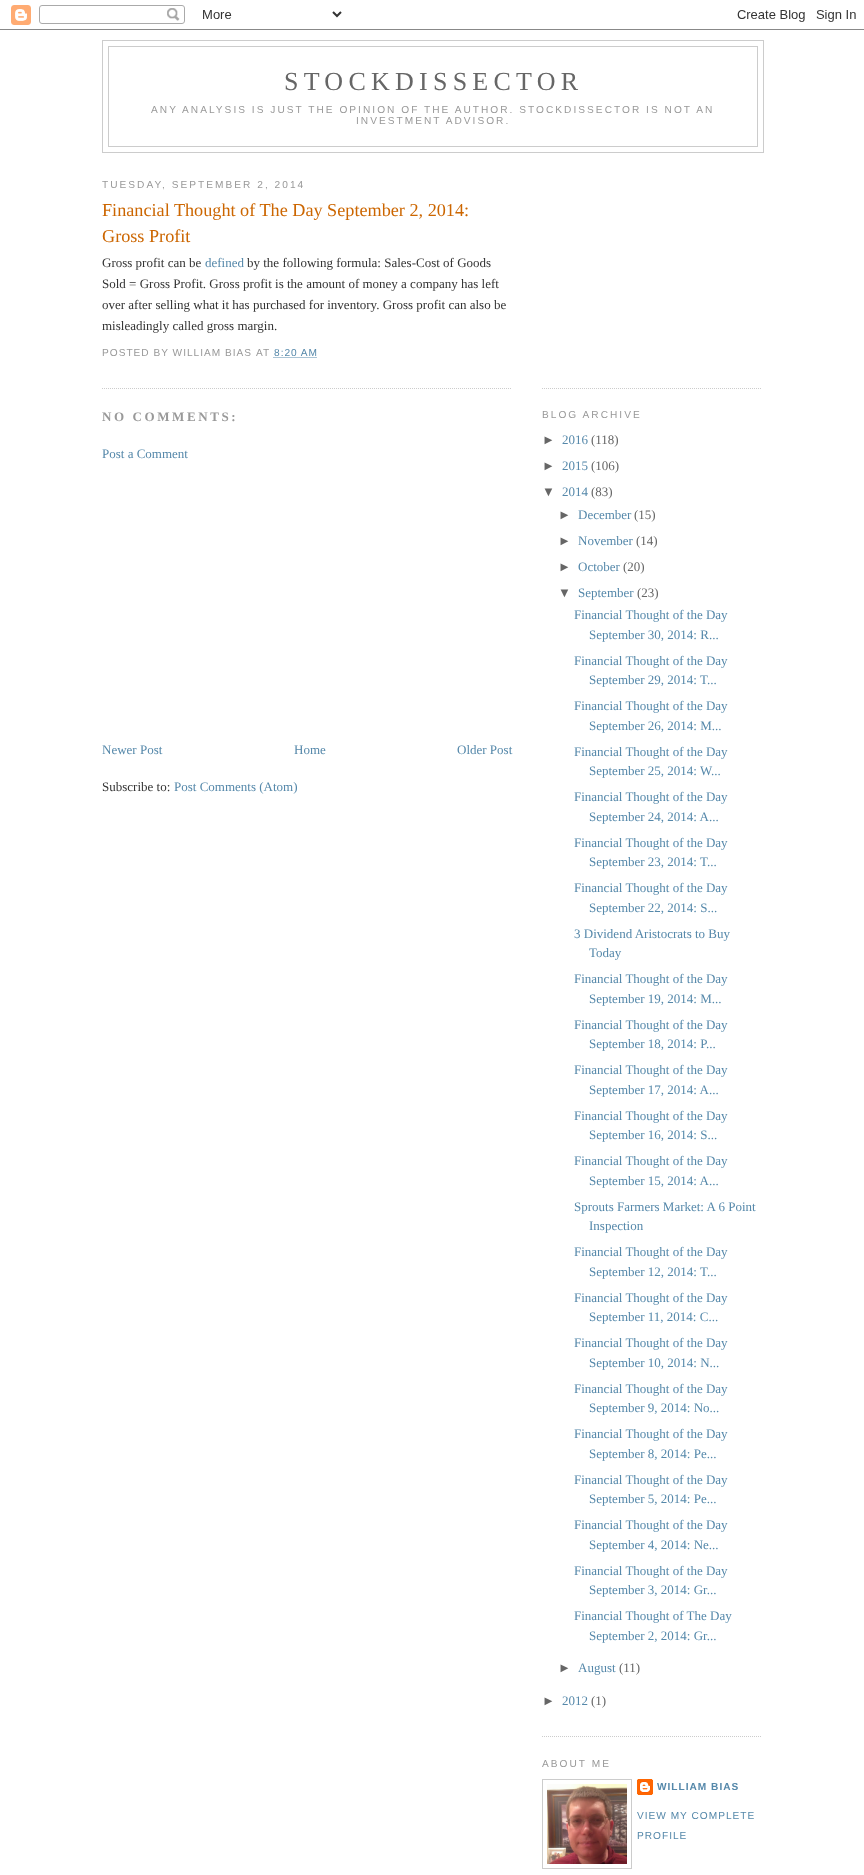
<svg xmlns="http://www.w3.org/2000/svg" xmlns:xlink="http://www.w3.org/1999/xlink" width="864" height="1875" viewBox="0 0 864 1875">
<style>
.cls-1{font:26px Liberation Serif;letter-spacing:5.25px;fill:#666666}
.cls-2{font:10.15px Liberation Sans;letter-spacing:2.03px;fill:#999999}
.cls-3{font:18.2px Liberation Serif;fill:#cc6600}
.cls-4{font:13px Liberation Serif;fill:#333333}
.cls-5{font:13px Liberation Serif;fill:#5588aa}
.cls-6{font:10.15px Liberation Sans;letter-spacing:1px;fill:#999999}
.cls-7{font:10.15px Liberation Sans;letter-spacing:1px;fill:#5588aa}
.cls-8{font:bold 13px Liberation Serif;letter-spacing:2.6px;fill:#999999}
.cls-9{font:13px Liberation Sans;fill:#666666}
.cls-10{font:13px Liberation Serif;fill:#666666}
.cls-11{font:bold 10.15px Liberation Sans;letter-spacing:1px;fill:#5588aa}
</style>
<rect width="100%" height="100%" fill="#ffffff"/>
<image xlink:href="image0.png" x="0" y="5" width="864" height="25"/>
<rect fill="none" stroke="#cccccc" x="102.5" y="40.5" width="661" height="112"/>
<rect fill="none" stroke="#cccccc" x="108.5" y="46.5" width="649" height="100"/>
<path fill="none" stroke="#cccccc" stroke-dasharray="1 1" d="M102 388.5H512"/>
<path fill="none" stroke="#5588aa" stroke-dasharray="1 1" d="M273.5 357.5H317.5"/>
<path fill="none" stroke="#cccccc" stroke-dasharray="1 1" d="M542 388.5H762"/>
<path fill="none" stroke="#cccccc" stroke-dasharray="1 1" d="M542 1736.5H762"/>
<rect fill="none" stroke="#cccccc" x="542.5" y="1779.5" width="89" height="89"/>
<image xlink:href="image1.png" x="547" y="1784" width="80" height="80"/>
<image xlink:href="image2.png" x="637" y="1779" width="16" height="16"/>
<text class="cls-1" x="284" y="90">STOCKDISSECTOR</text>
<text class="cls-2" x="151" y="113">ANY ANALYSIS IS JUST THE OPINION OF THE AUTHOR. STOCKDISSECTOR IS NOT AN</text>
<text class="cls-2" x="356" y="124">INVESTMENT ADVISOR.</text>
<text class="cls-2" x="102" y="188">TUESDAY, SEPTEMBER 2, 2014</text>
<text class="cls-3"><tspan x="102" y="216">Financial Thought of The Day September 2, 2014:</tspan><tspan x="102" y="242">Gross Profit</tspan></text>
<text class="cls-4" x="102" y="267">Gross profit can be</text>
<text class="cls-5" x="205" y="267">defined</text>
<text class="cls-4" x="247" y="267">by the following formula: Sales-Cost of Goods</text>
<text class="cls-4"><tspan x="102" y="288">Sold = Gross Profit. Gross profit is the amount of money a company has left</tspan><tspan x="102" y="309">over after selling what it has purchased for inventory. Gross profit can also be</tspan><tspan x="102" y="330">misleadingly called gross margin.</tspan></text>
<text class="cls-6" x="102" y="356">POSTED BY WILLIAM BIAS</text>
<text class="cls-6" x="256" y="356">AT</text>
<text class="cls-7" x="274" y="356">8:20 AM</text>
<text class="cls-8" x="102" y="421">NO COMMENTS:</text>
<text class="cls-5" x="102" y="458">Post a Comment</text>
<text class="cls-5" x="102" y="754">Newer Post</text>
<text class="cls-5" x="294" y="754">Home</text>
<text class="cls-5" x="457" y="754">Older Post</text>
<text class="cls-4" x="102" y="791">Subscribe to:</text>
<text class="cls-5" x="174" y="791">Post Comments (Atom)</text>
<text class="cls-2" x="542" y="418">BLOG ARCHIVE</text>
<text class="cls-9" x="542" y="444">►</text>
<text class="cls-5" x="562" y="444">2016</text>
<text class="cls-10" x="591" y="444">(118)</text>
<text class="cls-9" x="542" y="470">►</text>
<text class="cls-5" x="562" y="470">2015</text>
<text class="cls-10" x="591" y="470">(106)</text>
<text class="cls-9" x="542" y="496">▼</text>
<text class="cls-5" x="562" y="496">2014</text>
<text class="cls-10" x="591" y="496">(83)</text>
<text class="cls-9" x="558" y="519">►</text>
<text class="cls-5" x="578" y="519">December</text>
<text class="cls-10" x="634" y="519">(15)</text>
<text class="cls-9" x="558" y="545">►</text>
<text class="cls-5" x="578" y="545">November</text>
<text class="cls-10" x="636" y="545">(14)</text>
<text class="cls-9" x="558" y="571">►</text>
<text class="cls-5" x="578" y="571">October</text>
<text class="cls-10" x="623" y="571">(20)</text>
<text class="cls-9" x="558" y="597">▼</text>
<text class="cls-5" x="578" y="597">September</text>
<text class="cls-10" x="637" y="597">(23)</text>
<text class="cls-5" x="574" y="619">Financial Thought of the Day</text>
<text class="cls-5" x="589" y="639">September 30, 2014: R...</text>
<text class="cls-5" x="574" y="665">Financial Thought of the Day</text>
<text class="cls-5" x="589" y="684">September 29, 2014: T...</text>
<text class="cls-5" x="574" y="710">Financial Thought of the Day</text>
<text class="cls-5" x="589" y="730">September 26, 2014: M...</text>
<text class="cls-5" x="574" y="756">Financial Thought of the Day</text>
<text class="cls-5" x="589" y="775">September 25, 2014: W...</text>
<text class="cls-5" x="574" y="801">Financial Thought of the Day</text>
<text class="cls-5" x="589" y="821">September 24, 2014: A...</text>
<text class="cls-5" x="574" y="847">Financial Thought of the Day</text>
<text class="cls-5" x="589" y="866">September 23, 2014: T...</text>
<text class="cls-5" x="574" y="892">Financial Thought of the Day</text>
<text class="cls-5" x="589" y="912">September 22, 2014: S...</text>
<text class="cls-5" x="574" y="938">3 Dividend Aristocrats to Buy</text>
<text class="cls-5" x="589" y="957">Today</text>
<text class="cls-5" x="574" y="983">Financial Thought of the Day</text>
<text class="cls-5" x="589" y="1003">September 19, 2014: M...</text>
<text class="cls-5" x="574" y="1029">Financial Thought of the Day</text>
<text class="cls-5" x="589" y="1048">September 18, 2014: P...</text>
<text class="cls-5" x="574" y="1074">Financial Thought of the Day</text>
<text class="cls-5" x="589" y="1094">September 17, 2014: A...</text>
<text class="cls-5" x="574" y="1120">Financial Thought of the Day</text>
<text class="cls-5" x="589" y="1139">September 16, 2014: S...</text>
<text class="cls-5" x="574" y="1165">Financial Thought of the Day</text>
<text class="cls-5" x="589" y="1185">September 15, 2014: A...</text>
<text class="cls-5" x="574" y="1211">Sprouts Farmers Market: A 6 Point</text>
<text class="cls-5" x="589" y="1230">Inspection</text>
<text class="cls-5" x="574" y="1256">Financial Thought of the Day</text>
<text class="cls-5" x="589" y="1276">September 12, 2014: T...</text>
<text class="cls-5" x="574" y="1302">Financial Thought of the Day</text>
<text class="cls-5" x="589" y="1321">September 11, 2014: C...</text>
<text class="cls-5" x="574" y="1347">Financial Thought of the Day</text>
<text class="cls-5" x="589" y="1367">September 10, 2014: N...</text>
<text class="cls-5" x="574" y="1393">Financial Thought of the Day</text>
<text class="cls-5" x="589" y="1412">September 9, 2014: No...</text>
<text class="cls-5" x="574" y="1438">Financial Thought of the Day</text>
<text class="cls-5" x="589" y="1458">September 8, 2014: Pe...</text>
<text class="cls-5" x="574" y="1484">Financial Thought of the Day</text>
<text class="cls-5" x="589" y="1503">September 5, 2014: Pe...</text>
<text class="cls-5" x="574" y="1529">Financial Thought of the Day</text>
<text class="cls-5" x="589" y="1549">September 4, 2014: Ne...</text>
<text class="cls-5" x="574" y="1575">Financial Thought of the Day</text>
<text class="cls-5" x="589" y="1594">September 3, 2014: Gr...</text>
<text class="cls-5" x="574" y="1620">Financial Thought of The Day</text>
<text class="cls-5" x="589" y="1640">September 2, 2014: Gr...</text>
<text class="cls-9" x="558" y="1672">►</text>
<text class="cls-5" x="578" y="1672">August</text>
<text class="cls-10" x="619" y="1672">(11)</text>
<text class="cls-9" x="542" y="1705">►</text>
<text class="cls-5" x="562" y="1705">2012</text>
<text class="cls-10" x="591" y="1705">(1)</text>
<text class="cls-2" x="542" y="1767">ABOUT ME</text>
<text class="cls-11" x="657" y="1790">WILLIAM BIAS</text>
<text class="cls-7"><tspan x="637" y="1819">VIEW MY COMPLETE</tspan><tspan x="637" y="1839">PROFILE</tspan></text>
</svg>
